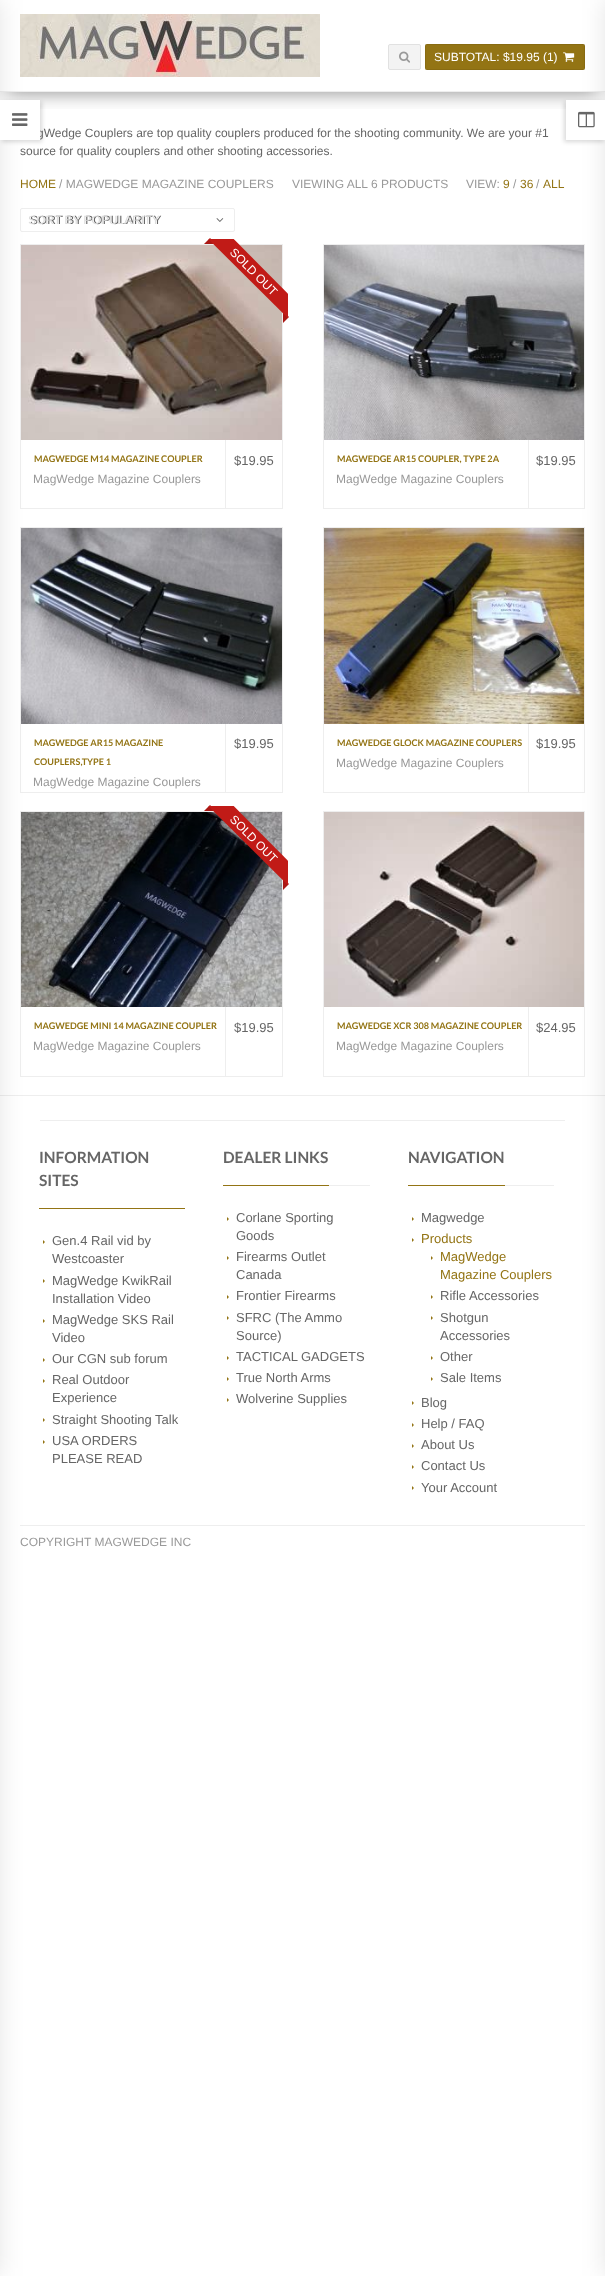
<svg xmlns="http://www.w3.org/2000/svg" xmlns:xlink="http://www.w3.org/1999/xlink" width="605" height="2276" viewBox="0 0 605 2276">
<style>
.cls-1{font:12px Liberation Sans;fill:#ffffff}
.cls-2{font:12px Liberation Sans;fill:#666666}
.cls-3{font:12px Liberation Sans;fill:#937414}
.cls-4{font:12px Liberation Sans;fill:#999999}
.cls-5{font:12px Liberation Sans;fill:#dcdcdc}
.cls-6{font:bold 9.1px Lato;fill:#937414}
.cls-7{font:13px Liberation Sans;fill:#666666}
.cls-8{font:bold 15.5px Lato;fill:#666666}
.cls-9{font:13px Liberation Sans;fill:#937414}
</style>
<defs>
<clipPath id="clip1"><rect x="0" y="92" width="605" height="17"/></clipPath>
<clipPath id="clip2"><rect x="204" y="239" width="84" height="84"/></clipPath>
<clipPath id="clip3"><rect x="204" y="806" width="84" height="84"/></clipPath>
</defs>
<rect width="100%" height="100%" fill="#ffffff"/>
<g clip-path="url(#clip1)">
<rect fill="#000000" fill-opacity="0.4" filter="blur(9px)" x="8" y="18" width="589" height="76"/>
</g>
<rect fill="#eeeeee" x="0" y="91" width="605" height="1"/>
<image xlink:href="image0.png" x="20" y="14" width="300" height="63"/>
<rect fill="none" stroke="#eeeeee" x="20.5" y="208.5" width="214" height="23" rx="1.5"/>
<rect fill="none" stroke="#eeeeee" x="20.5" y="244.5" width="262" height="264"/>
<image xlink:href="image6.png" x="21" y="245" width="261" height="195"/>
<rect fill="none" stroke="#eeeeee" x="20.5" y="527.5" width="262" height="265"/>
<image xlink:href="image8.png" x="21" y="528" width="261" height="196"/>
<rect fill="none" stroke="#eeeeee" x="20.5" y="811.5" width="262" height="265"/>
<image xlink:href="image10.png" x="21" y="812" width="261" height="195"/>
<rect fill="#eeeeee" x="0" y="1095" width="605" height="1"/>
<rect fill="#eeeeee" x="20" y="1525" width="565" height="1"/>
<rect fill="#000000" fill-opacity="0.1" filter="blur(12.5px)" x="-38" y="0" width="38" height="2276"/>
<rect fill="#f3f3f3" stroke="#e1e1e1" x="388.5" y="44.5" width="32" height="25" rx="1.5"/>
<image xlink:href="image1.png" x="399" y="51" width="11" height="12"/>
<rect fill="#937414" x="425" y="44" width="160" height="26" rx="2"/>
<rect fill="none" stroke="#000000" stroke-opacity="0.07" x="425.5" y="44.5" width="159" height="25"/>
<image xlink:href="image2.png" x="563" y="52" width="12" height="10"/>
<rect fill="#000000" fill-opacity="0.15" filter="blur(2px)" x="2" y="102" width="40" height="40"/>
<rect fill="none" stroke="#eeeeee" x="323.5" y="244.5" width="261" height="264"/>
<image xlink:href="image7.png" x="324" y="245" width="260" height="195"/>
<rect fill="none" stroke="#eeeeee" x="323.5" y="527.5" width="261" height="265"/>
<image xlink:href="image9.png" x="324" y="528" width="260" height="196"/>
<rect fill="none" stroke="#eeeeee" x="323.5" y="811.5" width="261" height="265"/>
<image xlink:href="image11.png" x="324" y="812" width="260" height="195"/>
<rect fill="#000000" fill-opacity="0.1" filter="blur(12.5px)" x="605" y="0" width="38" height="2276"/>
<rect fill="#000000" fill-opacity="0.15" filter="blur(2px)" x="564" y="102" width="40" height="40"/>
<rect fill="#ffffff" x="566" y="100" width="39" height="40"/>
<image xlink:href="image4.png" x="578" y="111" width="17" height="17"/>
<image xlink:href="image5.png" x="216" y="218" width="8" height="4"/>
<path fill="#aa1814" d="M216 244H204L210 238Z"/>
<path fill="#aa1814" d="M283 323V311L289 317Z"/>
<g clip-path="url(#clip2)">
<path fill="#c11b17" d="M196 201L324 330L312 342L183 214Z"/>
</g>
<rect fill="#eeeeee" x="225" y="440" width="1" height="68"/>
<rect fill="#eeeeee" x="528" y="440" width="1" height="68"/>
<rect fill="#eeeeee" x="225" y="724" width="1" height="68"/>
<rect fill="#eeeeee" x="528" y="724" width="1" height="68"/>
<path fill="#aa1814" d="M216 811H204L210 805Z"/>
<path fill="#aa1814" d="M283 890V878L289 884Z"/>
<g clip-path="url(#clip3)">
<path fill="#c11b17" d="M196 768L324 897L312 909L183 781Z"/>
</g>
<rect fill="#eeeeee" x="225" y="1007" width="1" height="69"/>
<rect fill="#eeeeee" x="528" y="1007" width="1" height="69"/>
<rect fill="#eeeeee" x="40" y="1120" width="525" height="1"/>
<rect fill="#937414" x="39" y="1208" width="146" height="1"/>
<path fill="#937414" d="M43 1244V1240L45 1242Z"/>
<path fill="#937414" d="M43 1283V1279L45 1281Z"/>
<path fill="#937414" d="M43 1323V1319L45 1321Z"/>
<path fill="#937414" d="M43 1362V1358L45 1360Z"/>
<path fill="#937414" d="M43 1383V1379L45 1381Z"/>
<path fill="#937414" d="M43 1422V1418L45 1420Z"/>
<path fill="#937414" d="M43 1444V1440L45 1442Z"/>
<rect fill="#eeeeee" x="329" y="1185" width="41" height="1"/>
<rect fill="#937414" x="223" y="1185" width="106" height="1"/>
<path fill="#937414" d="M227 1221V1217L229 1219Z"/>
<path fill="#937414" d="M227 1260V1256L229 1258Z"/>
<path fill="#937414" d="M227 1299V1295L229 1297Z"/>
<path fill="#937414" d="M227 1320V1316L229 1318Z"/>
<path fill="#937414" d="M227 1360V1356L229 1358Z"/>
<path fill="#937414" d="M227 1381V1377L229 1379Z"/>
<path fill="#937414" d="M227 1402V1398L229 1400Z"/>
<rect fill="#eeeeee" x="505" y="1185" width="49" height="1"/>
<rect fill="#937414" x="408" y="1185" width="97" height="1"/>
<path fill="#937414" d="M412 1221V1217L414 1219Z"/>
<path fill="#937414" d="M412 1242V1238L414 1240Z"/>
<path fill="#937414" d="M431 1260V1256L433 1258Z"/>
<path fill="#937414" d="M431 1299V1295L433 1297Z"/>
<path fill="#937414" d="M431 1320V1316L433 1318Z"/>
<path fill="#937414" d="M431 1360V1356L433 1358Z"/>
<path fill="#937414" d="M431 1381V1377L433 1379Z"/>
<path fill="#937414" d="M412 1405V1401L414 1403Z"/>
<path fill="#937414" d="M412 1427V1423L414 1425Z"/>
<path fill="#937414" d="M412 1448V1444L414 1446Z"/>
<path fill="#937414" d="M412 1469V1465L414 1467Z"/>
<path fill="#937414" d="M412 1490V1486L414 1488Z"/>
<text class="cls-1" x="434" y="61">SUBTOTAL: $19.95 (1)</text>
<text class="cls-2" x="37" y="137">gWedge Couplers are top quality couplers produced for the shooting community. We are your #1</text>
<rect fill="#ffffff" x="0" y="100" width="40" height="40"/>
<image xlink:href="image3.png" x="12" y="113" width="16" height="13"/>
<text class="cls-2" x="20" y="155">source for quality couplers and other shooting accessories.</text>
<text class="cls-3" x="20" y="188">HOME</text>
<text class="cls-4" x="59" y="188">/ MAGWEDGE MAGAZINE COUPLERS</text>
<text class="cls-4" x="292" y="188">VIEWING ALL 6 PRODUCTS</text>
<text class="cls-4" x="466" y="188">VIEW:</text>
<text class="cls-3" x="503" y="188">9</text>
<text class="cls-4" x="513" y="188">/</text>
<text class="cls-3" x="520" y="188">36</text>
<text class="cls-4" x="536" y="188">/</text>
<text class="cls-3" x="543" y="188">ALL</text>
<text class="cls-2" x="30" y="224">SORT BY POPULARITY</text>
<text class="cls-5" x="28" y="224">SORT BY POPULARITY</text>
<text class="cls-1" x="229" y="253" transform="rotate(45 229 253)">SOLD OUT</text>
<text class="cls-6" x="34" y="462">MAGWEDGE M14 MAGAZINE COUPLER</text>
<text class="cls-7" x="234" y="465">$19.95</text>
<text class="cls-4" x="33" y="483">MagWedge Magazine Couplers</text>
<text class="cls-6" x="337" y="462">MAGWEDGE AR15 COUPLER, TYPE 2A</text>
<text class="cls-7" x="536" y="465">$19.95</text>
<text class="cls-4" x="336" y="483">MagWedge Magazine Couplers</text>
<text class="cls-6" x="34" y="746">MAGWEDGE AR15 MAGAZINE</text>
<text class="cls-6" x="34" y="765">COUPLERS,TYPE 1</text>
<text class="cls-7" x="234" y="748">$19.95</text>
<text class="cls-4" x="33" y="786">MagWedge Magazine Couplers</text>
<text class="cls-6" x="337" y="746">MAGWEDGE GLOCK MAGAZINE COUPLERS</text>
<text class="cls-7" x="536" y="748">$19.95</text>
<text class="cls-4" x="336" y="767">MagWedge Magazine Couplers</text>
<text class="cls-1" x="229" y="820" transform="rotate(45 229 820)">SOLD OUT</text>
<text class="cls-6" x="34" y="1029">MAGWEDGE MINI 14 MAGAZINE COUPLER</text>
<text class="cls-7" x="234" y="1032">$19.95</text>
<text class="cls-4" x="33" y="1050">MagWedge Magazine Couplers</text>
<text class="cls-6" x="337" y="1029">MAGWEDGE XCR 308 MAGAZINE COUPLER</text>
<text class="cls-7" x="536" y="1032">$24.95</text>
<text class="cls-4" x="336" y="1050">MagWedge Magazine Couplers</text>
<text class="cls-8"><tspan x="39" y="1163">INFORMATION</tspan><tspan x="39" y="1186">SITES</tspan></text>
<text class="cls-7"><tspan x="52" y="1245">Gen.4 Rail vid by</tspan><tspan x="52" y="1263">Westcoaster</tspan><tspan x="52" y="1285">MagWedge KwikRail</tspan><tspan x="52" y="1303">Installation Video</tspan><tspan x="52" y="1324">MagWedge SKS Rail</tspan><tspan x="52" y="1342">Video</tspan><tspan x="52" y="1363">Our CGN sub forum</tspan><tspan x="52" y="1384">Real Outdoor</tspan><tspan x="52" y="1402">Experience</tspan><tspan x="52" y="1424">Straight Shooting Talk</tspan><tspan x="52" y="1445">USA ORDERS</tspan><tspan x="52" y="1463">PLEASE READ</tspan></text>
<text class="cls-8" x="223" y="1163">DEALER LINKS</text>
<text class="cls-7"><tspan x="236" y="1222">Corlane Sporting</tspan><tspan x="236" y="1240">Goods</tspan><tspan x="236" y="1261">Firearms Outlet</tspan><tspan x="236" y="1279">Canada</tspan><tspan x="236" y="1300">Frontier Firearms</tspan><tspan x="236" y="1322">SFRC (The Ammo</tspan><tspan x="236" y="1340">Source)</tspan><tspan x="236" y="1361">TACTICAL GADGETS</tspan><tspan x="236" y="1382">True North Arms</tspan><tspan x="236" y="1403">Wolverine Supplies</tspan></text>
<text class="cls-8" x="408" y="1163">NAVIGATION</text>
<text class="cls-7" x="421" y="1222">Magwedge</text>
<text class="cls-9" x="421" y="1243">Products</text>
<text class="cls-9"><tspan x="440" y="1261">MagWedge</tspan><tspan x="440" y="1279">Magazine Couplers</tspan></text>
<text class="cls-7"><tspan x="440" y="1300">Rifle Accessories</tspan><tspan x="440" y="1322">Shotgun</tspan><tspan x="440" y="1340">Accessories</tspan><tspan x="440" y="1361">Other</tspan><tspan x="440" y="1382">Sale Items</tspan></text>
<text class="cls-7"><tspan x="421" y="1407">Blog</tspan><tspan x="421" y="1428">Help / FAQ</tspan><tspan x="421" y="1449">About Us</tspan><tspan x="421" y="1470">Contact Us</tspan><tspan x="421" y="1492">Your Account</tspan></text>
<text class="cls-4" x="20" y="1546">COPYRIGHT MAGWEDGE INC</text>
</svg>
